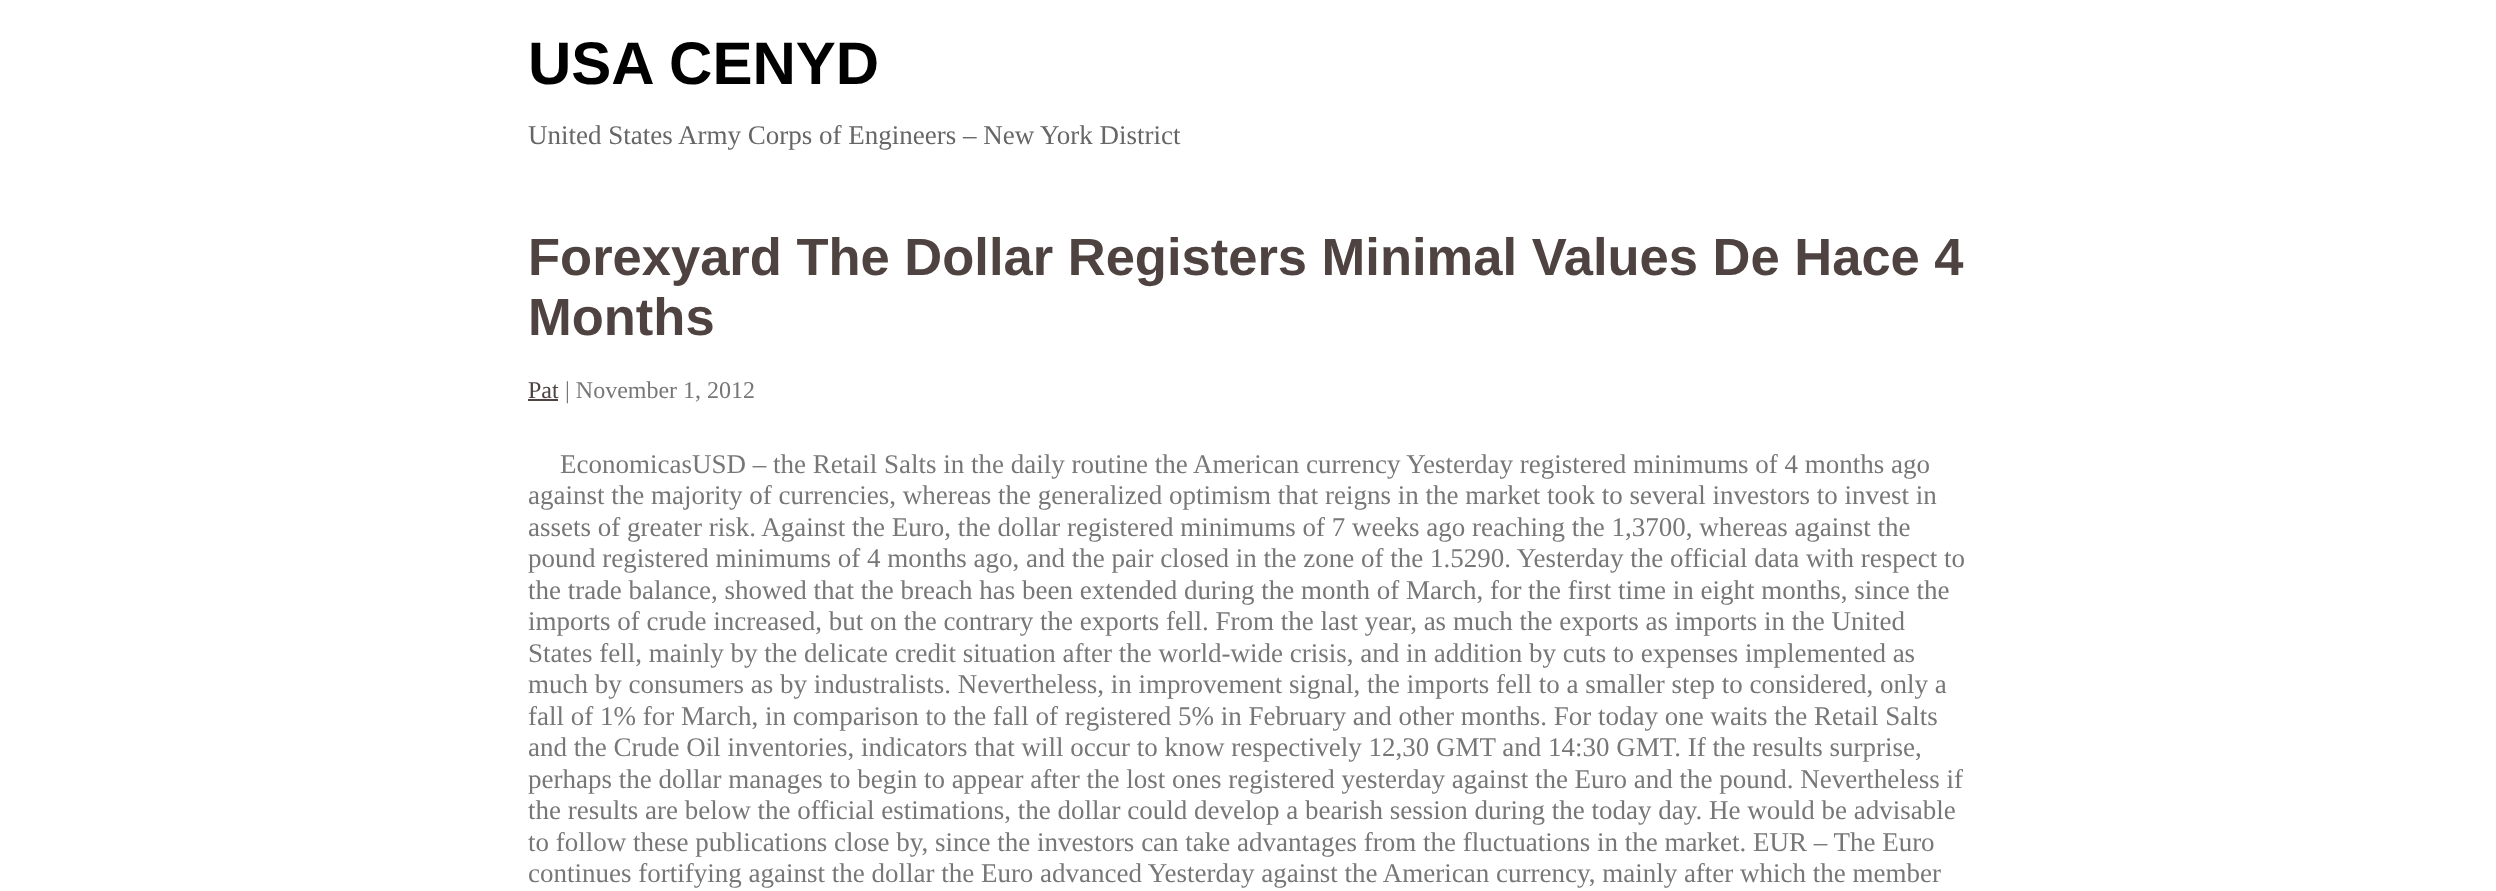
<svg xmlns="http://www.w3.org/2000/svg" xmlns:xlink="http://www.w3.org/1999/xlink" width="2496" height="891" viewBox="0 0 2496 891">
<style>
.cls-1{font:bold 60px Liberation Sans;fill:#000000}
.cls-2{font:27px Liberation Serif;fill:#666666}
.cls-3{font:bold 52.5px Liberation Sans;fill:#4e4340}
.cls-4{font:24px Liberation Serif;fill:#4e4340}
.cls-5{font:24px Liberation Serif;fill:#777777}
.cls-6{font:27px Liberation Serif;fill:#777777}
</style>
<rect width="100%" height="100%" fill="#ffffff"/>
<rect fill="#4e4340" x="528" y="399" width="30" height="2"/>
<text class="cls-1" x="528" y="84">USA CENYD</text>
<text class="cls-2" x="528" y="144">United States Army Corps of Engineers – New York District</text>
<text class="cls-3"><tspan x="528" y="275">Forexyard The Dollar Registers Minimal Values De Hace 4</tspan><tspan x="528" y="335">Months</tspan></text>
<text class="cls-4" x="528" y="398">Pat</text>
<text class="cls-5" x="565" y="398">| November 1, 2012</text>
<text class="cls-6" x="560" y="473">EconomicasUSD – the Retail Salts in the daily routine the American currency Yesterday registered minimums of 4 months ago</text>
<text class="cls-6"><tspan x="528" y="504">against the majority of currencies, whereas the generalized optimism that reigns in the market took to several investors to invest in</tspan><tspan x="528" y="536">assets of greater risk. Against the Euro, the dollar registered minimums of 7 weeks ago reaching the 1,3700, whereas against the</tspan><tspan x="528" y="567">pound registered minimums of 4 months ago, and the pair closed in the zone of the 1.5290. Yesterday the official data with respect to</tspan><tspan x="528" y="599">the trade balance, showed that the breach has been extended during the month of March, for the first time in eight months, since the</tspan><tspan x="528" y="630">imports of crude increased, but on the contrary the exports fell. From the last year, as much the exports as imports in the United</tspan><tspan x="528" y="662">States fell, mainly by the delicate credit situation after the world-wide crisis, and in addition by cuts to expenses implemented as</tspan><tspan x="528" y="693">much by consumers as by industralists. Nevertheless, in improvement signal, the imports fell to a smaller step to considered, only a</tspan><tspan x="528" y="725">fall of 1% for March, in comparison to the fall of registered 5% in February and other months. For today one waits the Retail Salts</tspan><tspan x="528" y="756">and the Crude Oil inventories, indicators that will occur to know respectively 12,30 GMT and 14:30 GMT. If the results surprise,</tspan><tspan x="528" y="788">perhaps the dollar manages to begin to appear after the lost ones registered yesterday against the Euro and the pound. Nevertheless if</tspan><tspan x="528" y="819">the results are below the official estimations, the dollar could develop a bearish session during the today day. He would be advisable</tspan><tspan x="528" y="851">to follow these publications close by, since the investors can take advantages from the fluctuations in the market. EUR – The Euro</tspan><tspan x="528" y="882">continues fortifying against the dollar the Euro advanced Yesterday against the American currency, mainly after which the member</tspan></text>
</svg>
